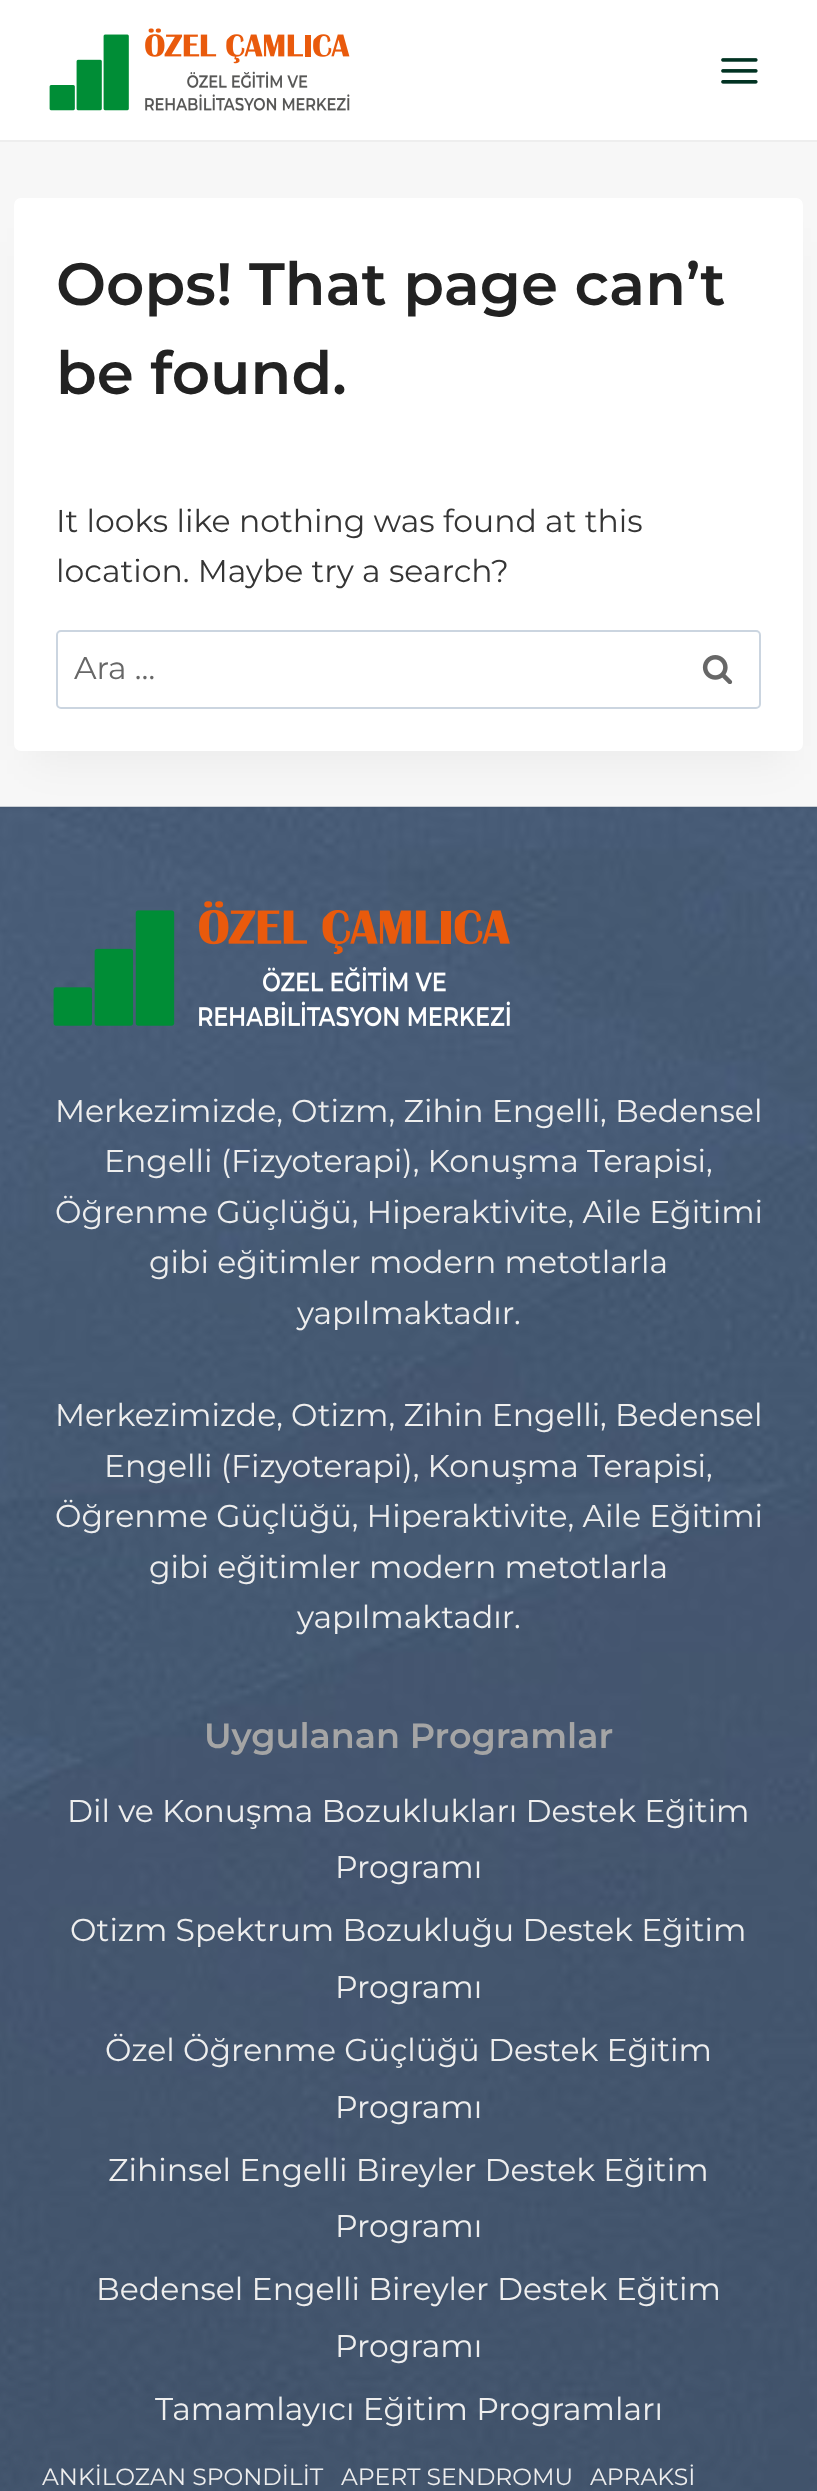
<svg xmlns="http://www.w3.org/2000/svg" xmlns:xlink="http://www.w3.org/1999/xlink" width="817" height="2491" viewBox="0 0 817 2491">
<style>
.cls-1{font:600 59.5px Montserrat;fill:#222222}
.cls-2{font:31.5px Montserrat;fill:#353535}
.cls-3{font:31.5px Montserrat;fill:#676767}
.cls-4{font:31.5px Montserrat;fill:#eeeeee}
.cls-5{font:600 35px Montserrat;fill:#a5a5a5}
.cls-6{font:23.5px Montserrat;fill:#eeeeee}
</style>
<rect width="100%" height="100%" fill="#f7f7f7"/>
<rect fill="#ffffff" x="0" y="0" width="817" height="140"/>
<rect fill="#eeeeee" x="0" y="140" width="817" height="2"/>
<image xlink:href="image0.png" x="49" y="28" width="301" height="83"/>
<image xlink:href="image1.png" x="721" y="58" width="37" height="26"/>
<image xlink:href="image3.png" x="0" y="806" width="817" height="1685"/>
<rect fill="#000000" fill-opacity="0.05" filter="blur(22px)" x="32" y="242" width="754" height="518"/>
<rect fill="#ffffff" x="14" y="198" width="789" height="553" rx="7"/>
<rect fill="none" stroke="#cbd5e0" stroke-width="2" x="57" y="631" width="703" height="77" rx="4"/>
<image xlink:href="image2.png" x="702" y="655" width="31" height="29"/>
<image xlink:href="image4.png" x="53" y="901" width="457" height="126"/>
<text class="cls-1"><tspan x="56" y="305">Oops! That page can’t</tspan><tspan x="56" y="394">be found.</tspan></text>
<text class="cls-2"><tspan x="56" y="532">It looks like nothing was found at this</tspan><tspan x="56" y="582">location. Maybe try a search?</tspan></text>
<text class="cls-3" x="74" y="679">Ara …</text>
<text class="cls-4" x="55" y="1122">Merkezimizde, Otizm, Zihin Engelli, Bedensel</text>
<text class="cls-4" x="104" y="1172">Engelli (Fizyoterapi), Konuşma Terapisi,</text>
<text class="cls-4" x="55" y="1223">Öğrenme Güçlüğü, Hiperaktivite, Aile Eğitimi</text>
<text class="cls-4" x="149" y="1273">gibi eğitimler modern metotlarla</text>
<text class="cls-4" x="297" y="1324">yapılmaktadır.</text>
<text class="cls-4" x="55" y="1426">Merkezimizde, Otizm, Zihin Engelli, Bedensel</text>
<text class="cls-4" x="104" y="1477">Engelli (Fizyoterapi), Konuşma Terapisi,</text>
<text class="cls-4" x="55" y="1527">Öğrenme Güçlüğü, Hiperaktivite, Aile Eğitimi</text>
<text class="cls-4" x="149" y="1578">gibi eğitimler modern metotlarla</text>
<text class="cls-4" x="297" y="1628">yapılmaktadır.</text>
<text class="cls-5" x="204" y="1748">Uygulanan Programlar</text>
<text class="cls-4" x="67" y="1822">Dil ve Konuşma Bozuklukları Destek Eğitim</text>
<text class="cls-4" x="335" y="1878">Programı</text>
<text class="cls-4" x="70" y="1941">Otizm Spektrum Bozukluğu Destek Eğitim</text>
<text class="cls-4" x="335" y="1998">Programı</text>
<text class="cls-4" x="105" y="2061">Özel Öğrenme Güçlüğü Destek Eğitim</text>
<text class="cls-4" x="335" y="2118">Programı</text>
<text class="cls-4" x="108" y="2181">Zihinsel Engelli Bireyler Destek Eğitim</text>
<text class="cls-4" x="335" y="2237">Programı</text>
<text class="cls-4" x="96" y="2300">Bedensel Engelli Bireyler Destek Eğitim</text>
<text class="cls-4" x="335" y="2357">Programı</text>
<text class="cls-4" x="155" y="2420">Tamamlayıcı Eğitim Programları</text>
<text class="cls-6" x="42" y="2485">ANKİLOZAN SPONDİLİT</text>
<text class="cls-6" x="341" y="2485">APERT SENDROMU</text>
<text class="cls-6" x="590" y="2485">APRAKSİ</text>
</svg>
